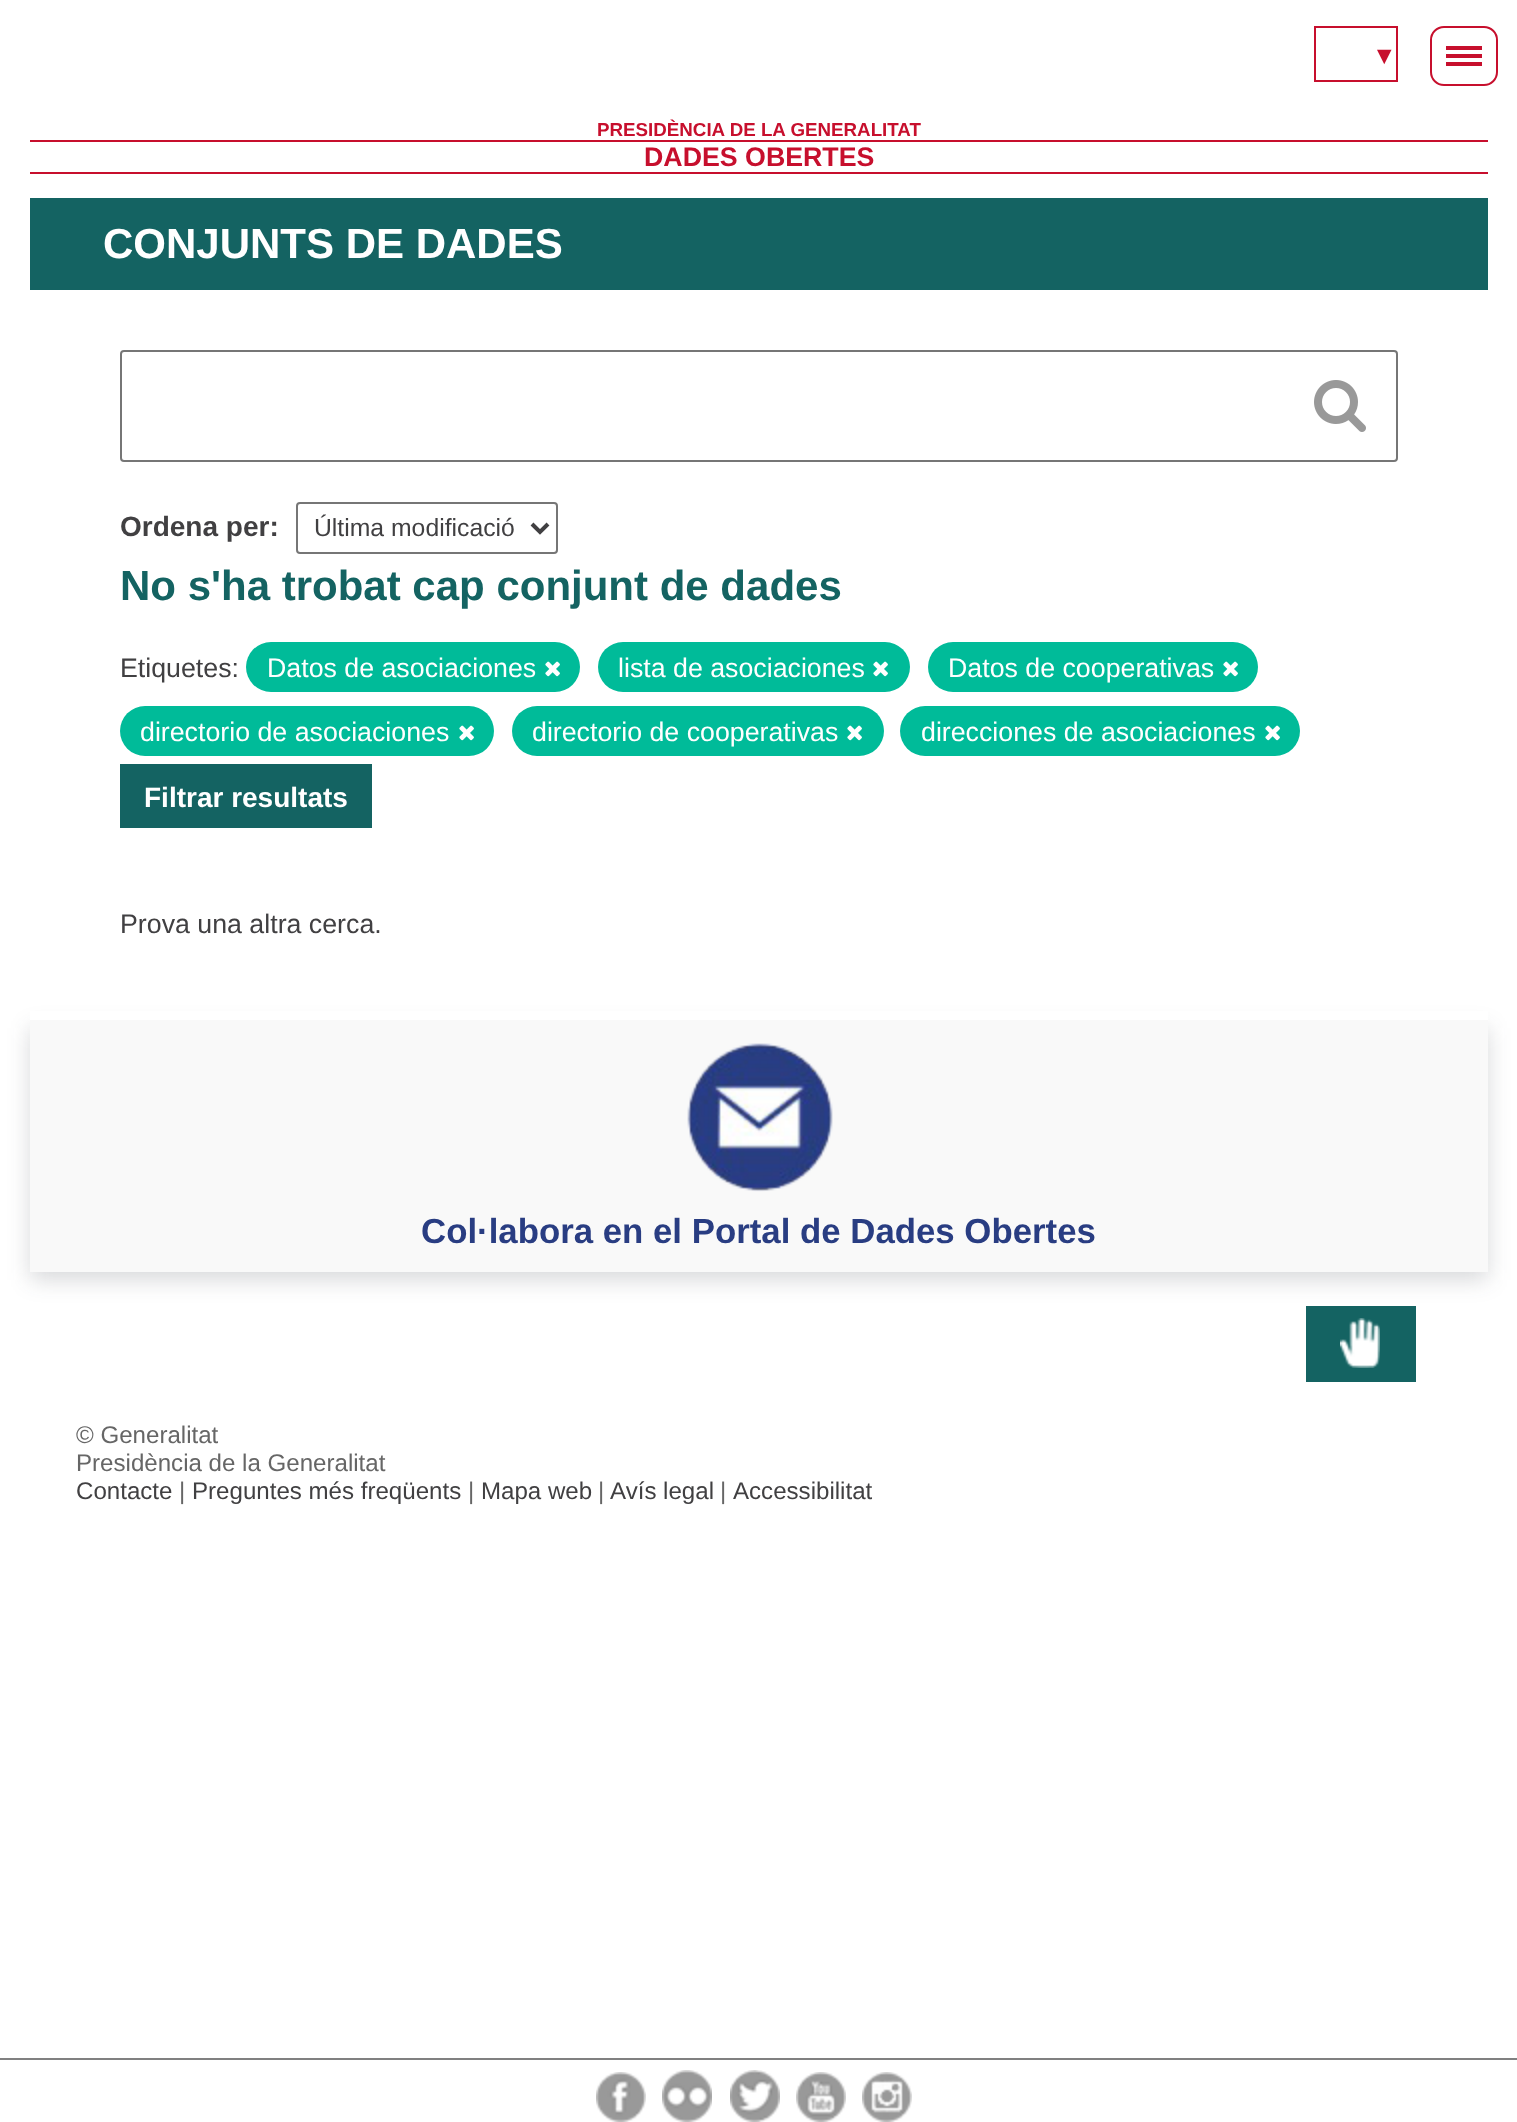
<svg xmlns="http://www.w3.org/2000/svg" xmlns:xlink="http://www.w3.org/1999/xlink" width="1517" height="2122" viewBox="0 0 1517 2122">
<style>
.cls-1{font:24.75px Liberation Sans;fill:#c70f2d}
.cls-2{font:bold 18.75px Liberation Sans;fill:#c70f2d}
.cls-3{font:bold 26.75px Liberation Sans;fill:#c70f2d}
.cls-4{font:bold 42px Liberation Sans;fill:#ffffff}
.cls-5{font:bold 28px Liberation Sans;fill:#414042}
.cls-6{font:24.75px Liberation Sans;fill:#414042}
.cls-7{font:bold 42px Liberation Sans;fill:#146362}
.cls-8{font:26.75px Liberation Sans;fill:#414042}
.cls-9{font:26.75px Liberation Sans;fill:#ffffff}
.cls-10{font:bold 28px Liberation Sans;fill:#ffffff}
.cls-11{font:bold 34.8px Liberation Sans;fill:#293d82}
.cls-12{font:24.1px Liberation Sans;fill:#666666}
.cls-13{font:24.1px Liberation Sans;fill:#414042}
</style>
<rect width="100%" height="100%" fill="#ffffff"/>
<rect fill="none" stroke="#c70f2d" stroke-width="2" x="1315" y="27" width="82" height="54"/>
<rect fill="none" stroke="#c70f2d" stroke-width="2" x="1431" y="27" width="66" height="58" rx="13"/>
<rect fill="#c70f2d" x="1446" y="46" width="36" height="4"/>
<rect fill="#c70f2d" x="1446" y="54" width="36" height="4"/>
<rect fill="#c70f2d" x="1446" y="62" width="36" height="4"/>
<rect fill="#c70f2d" x="30" y="140" width="1458" height="2"/>
<rect fill="#c70f2d" x="30" y="172" width="1458" height="2"/>
<rect fill="#292d37" fill-opacity="0.18" filter="blur(11px)" x="30" y="1028" width="1458" height="252"/>
<rect fill="#ffffff" x="30" y="1011" width="1458" height="9"/>
<rect fill="#146362" x="30" y="198" width="1458" height="92"/>
<rect fill="none" stroke="#767676" stroke-width="2" x="121" y="351" width="1276" height="110" rx="3"/>
<image xlink:href="image0.png" x="1314" y="380" width="52" height="52"/>
<rect fill="none" stroke="#767676" stroke-width="2" x="297" y="503" width="260" height="50" rx="3"/>
<path fill="none" stroke="#414042" stroke-width="4" d="M532 524L540 532L548 524"/>
<rect fill="#00bb99" x="246" y="642" width="334" height="50" rx="25"/>
<image xlink:href="image1.png" x="545" y="661" width="15" height="16"/>
<rect fill="#00bb99" x="598" y="642" width="312" height="50" rx="25"/>
<image xlink:href="image1.png" x="873" y="661" width="15" height="16"/>
<rect fill="#00bb99" x="928" y="642" width="330" height="50" rx="25"/>
<image xlink:href="image1.png" x="1223" y="661" width="15" height="16"/>
<rect fill="#00bb99" x="120" y="706" width="374" height="50" rx="25"/>
<image xlink:href="image1.png" x="459" y="725" width="15" height="16"/>
<rect fill="#00bb99" x="512" y="706" width="372" height="50" rx="25"/>
<image xlink:href="image1.png" x="847" y="725" width="15" height="16"/>
<rect fill="#00bb99" x="900" y="706" width="400" height="50" rx="25"/>
<image xlink:href="image1.png" x="1265" y="725" width="15" height="16"/>
<rect fill="#146362" x="120" y="764" width="252" height="64"/>
<rect fill="#f9f9f9" x="30" y="1020" width="1458" height="252"/>
<image xlink:href="image2.png" x="687" y="1043" width="146" height="149"/>
<rect fill="#146362" x="1306" y="1306" width="110" height="76"/>
<image xlink:href="image3.png" x="1340" y="1318" width="40" height="50"/>
<rect fill="#808080" x="0" y="2058" width="1517" height="2"/>
<image xlink:href="image4.png" x="596" y="2072" width="50" height="50"/>
<image xlink:href="image5.png" x="662" y="2070" width="50" height="52"/>
<image xlink:href="image6.png" x="730" y="2070" width="50" height="52"/>
<image xlink:href="image7.png" x="796" y="2072" width="50" height="50"/>
<image xlink:href="image8.png" x="862" y="2072" width="50" height="50"/>
<text class="cls-1" x="1372" y="64">▼</text>
<text class="cls-2" x="597" y="136">PRESIDÈNCIA DE LA GENERALITAT</text>
<text class="cls-3" x="644" y="166">DADES OBERTES</text>
<text class="cls-4" x="103" y="258">CONJUNTS DE DADES</text>
<text class="cls-5" x="120" y="536">Ordena per:</text>
<text class="cls-6" x="314" y="536">Última modificació</text>
<text class="cls-7" x="120" y="600">No s'ha trobat cap conjunt de dades</text>
<text class="cls-8" x="120" y="677">Etiquetes:</text>
<text class="cls-9" x="267" y="677">Datos de asociaciones</text>
<text class="cls-9" x="618" y="677">lista de asociaciones</text>
<text class="cls-9" x="948" y="677">Datos de cooperativas</text>
<text class="cls-9" x="140" y="741">directorio de asociaciones</text>
<text class="cls-9" x="532" y="741">directorio de cooperativas</text>
<text class="cls-9" x="921" y="741">direcciones de asociaciones</text>
<text class="cls-10" x="144" y="807">Filtrar resultats</text>
<text class="cls-8" x="120" y="933">Prova una altra cerca.</text>
<text class="cls-11" x="421" y="1243">Col·labora en el Portal de Dades Obertes</text>
<text class="cls-12"><tspan x="76" y="1443">© Generalitat</tspan><tspan x="76" y="1471">Presidència de la Generalitat</tspan></text>
<text class="cls-13" x="76" y="1499">Contacte</text>
<text class="cls-12" x="179" y="1499">|</text>
<text class="cls-13" x="192" y="1499">Preguntes més freqüents</text>
<text class="cls-12" x="468" y="1499">|</text>
<text class="cls-13" x="481" y="1499">Mapa web</text>
<text class="cls-12" x="598" y="1499">|</text>
<text class="cls-13" x="610" y="1499">Avís legal</text>
<text class="cls-12" x="720" y="1499">|</text>
<text class="cls-13" x="733" y="1499">Accessibilitat</text>
</svg>
